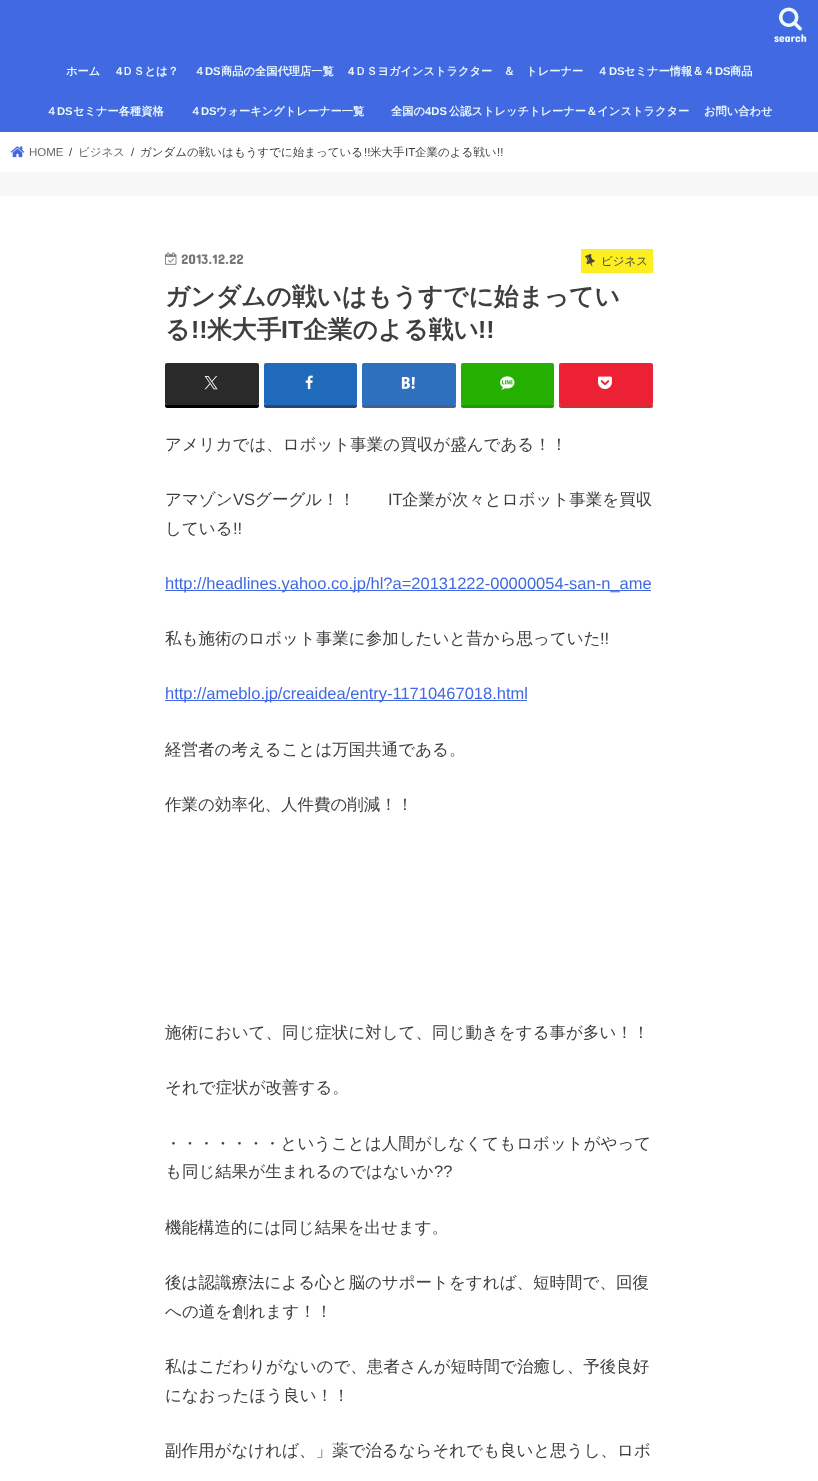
<svg xmlns="http://www.w3.org/2000/svg" xmlns:xlink="http://www.w3.org/1999/xlink" width="818" height="1481" viewBox="0 0 818 1481">
<style>
.cls-1{font:11.5px Concert One;fill:#edf9fc}
.cls-2{font:bold 11.25px WenQuanYi Zen Hei;fill:#edf9fc}
.cls-3{font:bold 11.25px Liberation Sans;fill:#edf9fc}
.cls-4{font:11.5px Liberation Sans;fill:#666666}
.cls-5{font:11.5px Liberation Sans;fill:#3e3e3e}
.cls-6{font:500 11.5px WenQuanYi Zen Hei;fill:#666666}
.cls-7{font:500 11.5px WenQuanYi Zen Hei;fill:#3e3e3e}
.cls-8{font:14px Concert One;fill:#787878}
.cls-9{font:500 11.5px WenQuanYi Zen Hei;fill:#444444}
.cls-10{font:bold 24.75px WenQuanYi Zen Hei;fill:#3e3e3e}
.cls-11{font:bold 24.75px Liberation Sans;fill:#3e3e3e}
.cls-12{font:500 16.5px WenQuanYi Zen Hei;fill:#3e3e3e}
.cls-13{font:16.5px Liberation Sans;fill:#3e3e3e}
.cls-14{font:16.5px Liberation Sans;fill:#4169e1}
</style>
<rect width="100%" height="100%" fill="#f7f7f7"/>
<rect fill="#dddddd" filter="blur(0.5px)" x="0" y="132" width="818" height="40"/>
<rect fill="#4169e1" x="0" y="0" width="818" height="132"/>
<image xlink:href="image0.png" x="779" y="7" width="23" height="24"/>
<rect fill="#ffffff" x="0" y="132" width="818" height="40"/>
<image xlink:href="image1.png" x="10" y="146" width="15" height="12"/>
<rect fill="#dddddd" filter="blur(0.5px)" x="0" y="196" width="818" height="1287"/>
<rect fill="#ffffff" x="0" y="196" width="818" height="1285"/>
<image xlink:href="image2.png" x="165" y="252" width="12" height="13"/>
<rect fill="#fcee21" x="581" y="249" width="72" height="24"/>
<image xlink:href="image3.png" x="585" y="254" width="10" height="13"/>
<path fill="#000000" d="M165 403V406C165 407 166 408 167 408H257C258 408 259 407 259 406V403C259 404 258 405 257 405H167C166 405 165 404 165 403Z"/>
<rect fill="#2a2a2a" x="165" y="363" width="94" height="42" rx="2"/>
<image xlink:href="image4.png" x="204" y="376" width="14" height="14"/>
<path fill="#2c4373" d="M264 403V406C264 407 265 408 266 408H355C356 408 357 407 357 406V403C357 404 356 405 355 405H266C265 405 264 404 264 403Z"/>
<rect fill="#1f6aba" x="264" y="363" width="93" height="42" rx="2"/>
<image xlink:href="image5.png" x="305" y="375" width="8" height="15"/>
<path fill="#43638b" d="M362 403V406C362 407 363 408 364 408H454C455 408 456 407 456 406V403C456 404 455 405 454 405H364C363 405 362 404 362 403Z"/>
<rect fill="#2f70be" x="362" y="363" width="94" height="42" rx="2"/>
<image xlink:href="image6.png" x="401" y="376" width="14" height="13"/>
<path fill="#219900" d="M461 403V406C461 407 462 408 463 408H552C553 408 554 407 554 406V403C554 404 553 405 552 405H463C462 405 461 404 461 403Z"/>
<rect fill="#25af00" x="461" y="363" width="93" height="42" rx="2"/>
<image xlink:href="image7.png" x="500" y="376" width="15" height="14"/>
<path fill="#c0392b" d="M559 403V406C559 407 560 408 561 408H651C652 408 653 407 653 406V403C653 404 652 405 651 405H561C560 405 559 404 559 403Z"/>
<rect fill="#ec2136" x="559" y="363" width="94" height="42" rx="2"/>
<image xlink:href="image8.png" x="598" y="376" width="14" height="13"/>
<rect fill="#4169e1" x="165" y="590" width="486" height="1"/>
<rect fill="#4169e1" x="165" y="700" width="362" height="1"/>
<text class="cls-1" x="774" y="42">search</text>
<text class="cls-2" x="66" y="75">ホーム</text>
<text class="cls-3" x="116" y="75">4</text>
<text class="cls-2" x="122" y="75">ＤＳとは？</text>
<text class="cls-2" x="194" y="75">４</text>
<text class="cls-3" x="205" y="75">DS</text>
<text class="cls-2" x="221" y="75">商品の全国代理店一覧</text>
<text class="cls-3" x="348" y="75">4</text>
<text class="cls-2" x="355" y="75">ＤＳヨガインストラクター　＆　トレーナー</text>
<text class="cls-2" x="597" y="75">４</text>
<text class="cls-3" x="609" y="75">DS</text>
<text class="cls-2" x="624" y="75">セミナー情報＆４</text>
<text class="cls-3" x="715" y="75">DS</text>
<text class="cls-2" x="730" y="75">商品</text>
<text class="cls-2" x="46" y="115">４</text>
<text class="cls-3" x="57" y="115">DS</text>
<text class="cls-2" x="73" y="115">セミナー各種資格</text>
<text class="cls-2" x="190" y="115">４</text>
<text class="cls-3" x="201" y="115">DS</text>
<text class="cls-2" x="216" y="115">ウォーキングトレーナー一覧</text>
<text class="cls-2" x="391" y="115">全国の</text>
<text class="cls-3" x="425" y="115">4DS</text>
<text class="cls-2" x="449" y="115">公認ストレッチトレーナー＆インストラクター</text>
<text class="cls-2" x="704" y="115">お問い合わせ</text>
<text class="cls-4" x="29" y="156">HOME</text>
<text class="cls-5" x="69" y="156">/</text>
<text class="cls-6" x="78" y="156">ビジネス</text>
<text class="cls-5" x="131" y="156">/</text>
<text class="cls-7" x="140" y="156">ガンダムの戦いはもうすでに始まっている</text>
<text class="cls-5" x="364" y="156">!!</text>
<text class="cls-7" x="370" y="156">米大手</text>
<text class="cls-5" x="405" y="156">IT</text>
<text class="cls-7" x="415" y="156">企業のよる戦い</text>
<text class="cls-5" x="497" y="156">!!</text>
<text class="cls-8" x="181" y="264">2013.12.22</text>
<text class="cls-9" x="601" y="265">ビジネス</text>
<text class="cls-10"><tspan x="165" y="305">ガンダムの戦いはもうすでに始まってい</tspan><tspan x="165" y="338">る</tspan></text>
<text class="cls-11" x="191" y="338">!!</text>
<text class="cls-10" x="207" y="338">米大手</text>
<text class="cls-11" x="281" y="338">IT</text>
<text class="cls-10" x="303" y="338">企業のよる戦い</text>
<text class="cls-11" x="478" y="338">!!</text>
<text class="cls-12" x="165" y="450">アメリカでは、ロボット事業の買収が盛んである！！</text>
<text class="cls-12" x="165" y="505">アマゾン</text>
<text class="cls-13" x="233" y="505">VS</text>
<text class="cls-12" x="255" y="505">グーグル！！</text>
<text class="cls-13" x="388" y="505">IT</text>
<text class="cls-12" x="402" y="505">企業が次々とロボット事業を買収</text>
<text class="cls-12" x="165" y="534">している</text>
<text class="cls-13" x="233" y="534">!!</text>
<text class="cls-14" x="165" y="589">http://headlines.yahoo.co.jp/hl?a=20131222-00000054-san-n_ame</text>
<text class="cls-12" x="165" y="644">私も施術のロボット事業に参加したいと昔から思っていた</text>
<text class="cls-13" x="600" y="644">!!</text>
<text class="cls-14" x="165" y="699">http://ameblo.jp/creaidea/entry-11710467018.html</text>
<text class="cls-12" x="165" y="755">経営者の考えることは万国共通である。</text>
<text class="cls-12" x="165" y="810">作業の効率化、人件費の削減！！</text>
<text class="cls-12" x="165" y="1038">施術において、同じ症状に対して、同じ動きをする事が多い！！</text>
<text class="cls-12" x="165" y="1093">それで症状が改善する。</text>
<text class="cls-12"><tspan x="165" y="1149">・・・・・・・ということは人間がしなくてもロボットがやって</tspan><tspan x="165" y="1177">も同じ結果が生まれるのではないか</tspan></text>
<text class="cls-13" x="434" y="1177">??</text>
<text class="cls-12" x="165" y="1233">機能構造的には同じ結果を出せます。</text>
<text class="cls-12"><tspan x="165" y="1288">後は認識療法による心と脳のサポートをすれば、短時間で、回復</tspan><tspan x="165" y="1317">への道を創れます！！</tspan></text>
<text class="cls-12"><tspan x="165" y="1372">私はこだわりがないので、患者さんが短時間で治癒し、予後良好</tspan><tspan x="165" y="1401">になおったほう良い！！</tspan></text>
<text class="cls-12" x="165" y="1456">副作用がなければ、」薬で治るならそれでも良いと思うし、ロボ</text>
</svg>
